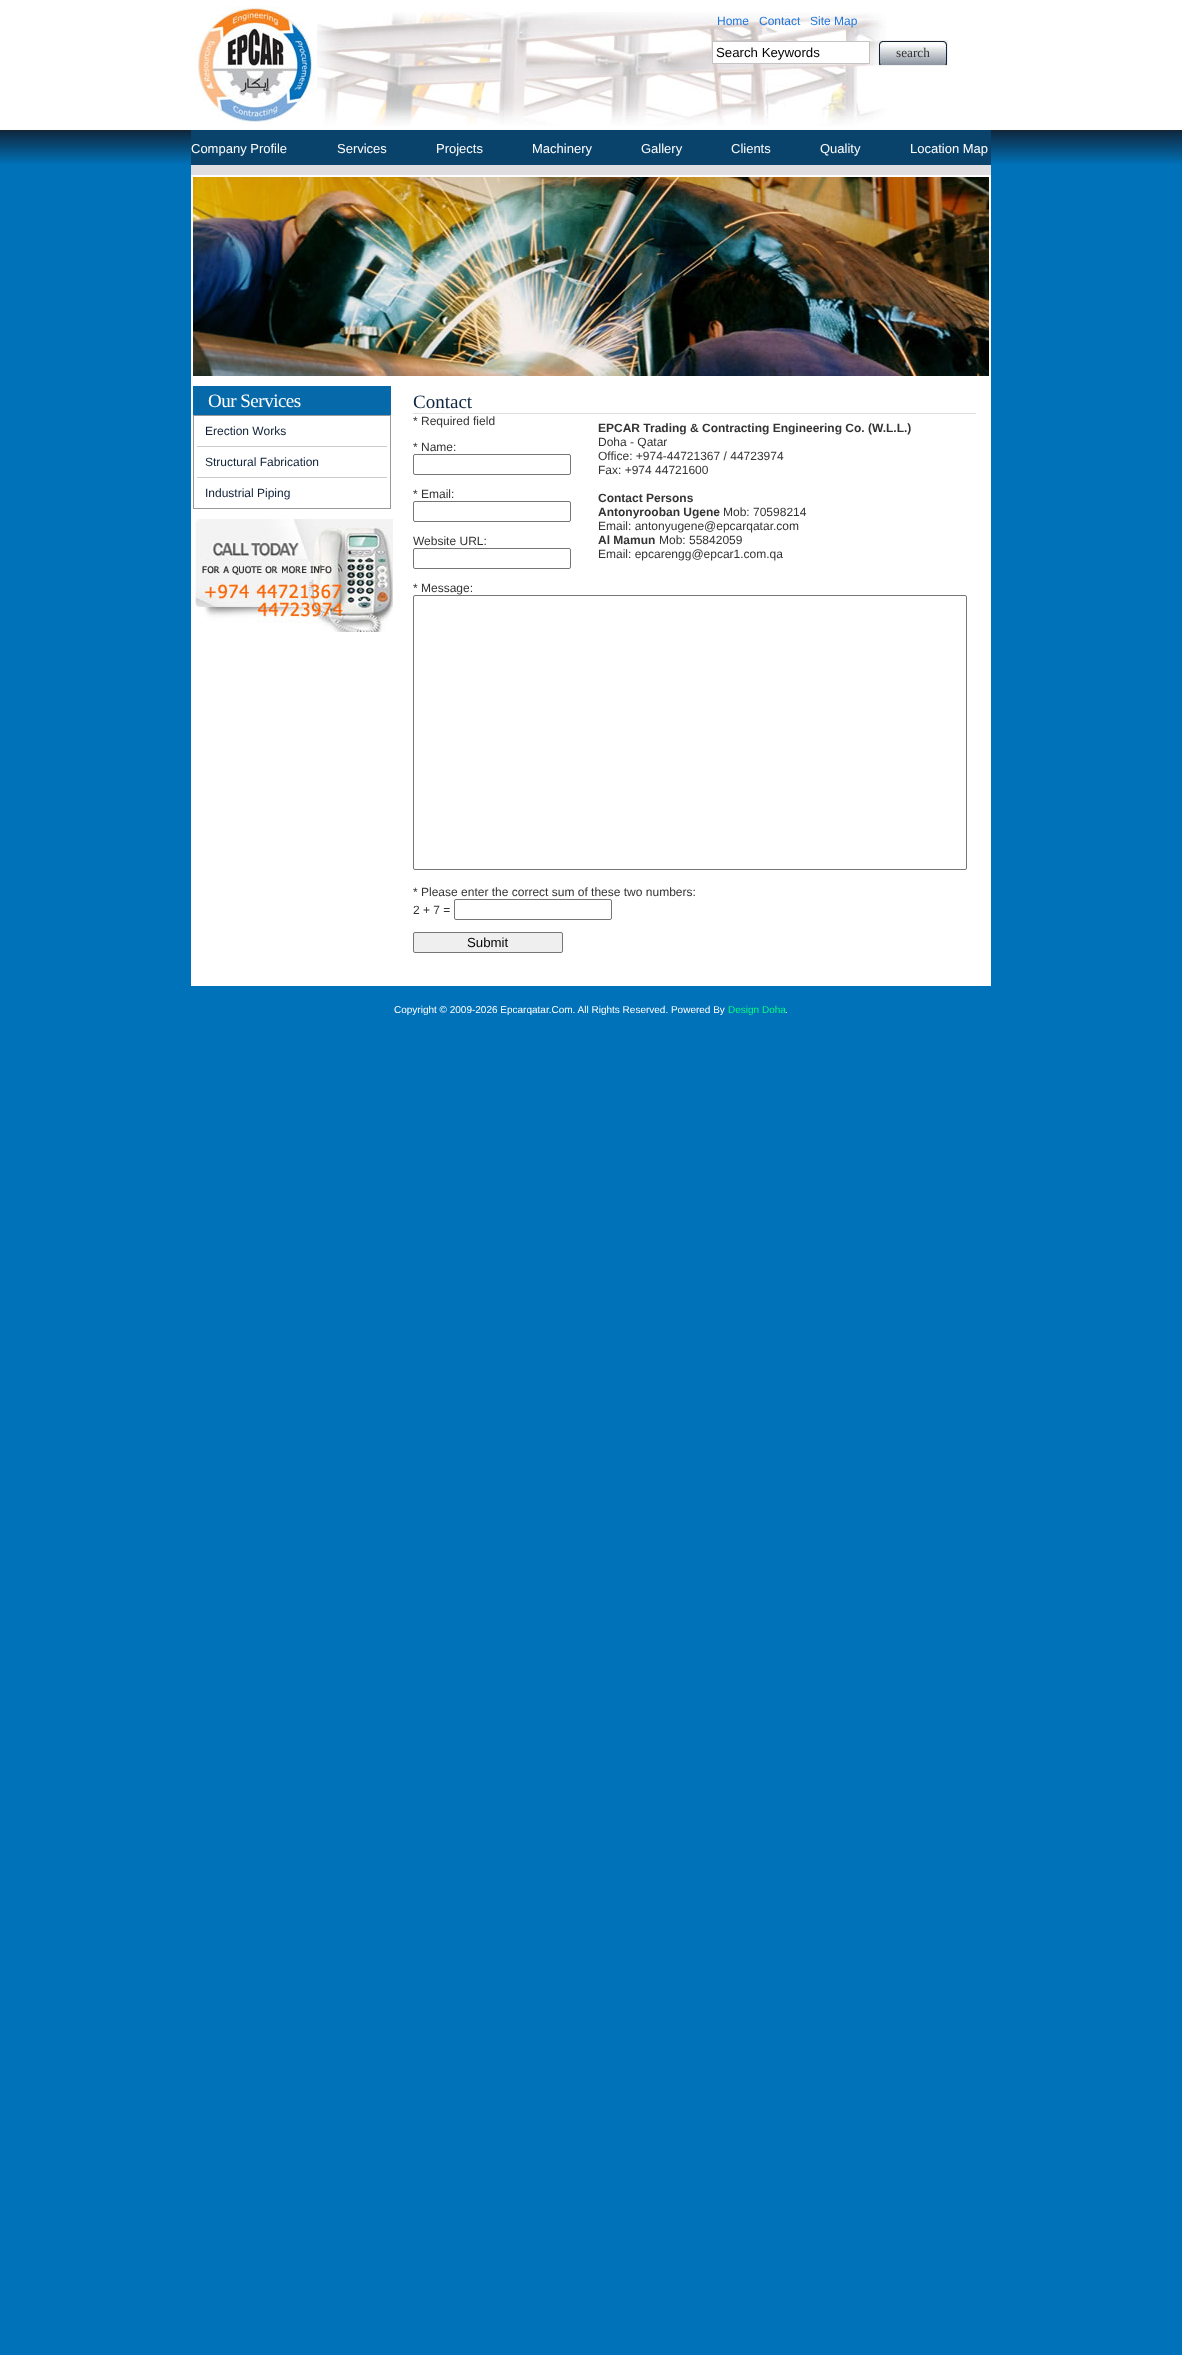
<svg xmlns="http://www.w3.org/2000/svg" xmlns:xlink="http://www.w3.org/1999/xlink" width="1182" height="2355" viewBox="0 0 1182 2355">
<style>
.cls-1{font:12px Liberation Sans;fill:#2277dd}
.cls-2{font:13.25px Liberation Sans;fill:#000000}
.cls-3{font:13.25px Liberation Serif;fill:#333333}
.cls-4{font:13px Liberation Sans;fill:#ffffff}
.cls-5{font:19px Liberation Serif;letter-spacing:-0.5px;fill:#ffffff}
.cls-6{font:12px Liberation Sans;fill:#0f2037}
.cls-7{font:19px Liberation Serif;fill:#10253e}
.cls-8{font:12px Liberation Sans;fill:#333333}
.cls-9{font:bold 12px Liberation Sans;fill:#333333}
.cls-10{font:10px Liberation Sans;fill:#ffffff}
.cls-11{font:10px Liberation Sans;fill:#00ff7f}
</style>
<rect width="100%" height="100%" fill="#0072ba"/>
<image xlink:href="image0.png" x="0" y="0" width="1182" height="164"/>
<rect fill="#e0dee1" x="191" y="165" width="800" height="10"/>
<rect fill="#ffffff" x="191" y="129" width="800" height="1"/>
<image xlink:href="image1.png" x="310" y="12" width="576" height="114"/>
<image xlink:href="image2.png" x="194" y="6" width="123" height="118"/>
<rect fill="#ffffff" stroke="#c4c4c4" x="712.5" y="41.5" width="157" height="22"/>
<image xlink:href="image3.png" x="879" y="41" width="68" height="24"/>
<rect fill="none" stroke="#f0f0f0" x="878.5" y="40.5" width="69" height="25"/>
<rect fill="#09436c" x="191" y="130" width="800" height="35"/>
<rect fill="#ffffff" x="191" y="175" width="800" height="811"/>
<image xlink:href="image4.png" x="193" y="177" width="796" height="199"/>
<rect fill="#0569aa" x="193" y="386" width="198" height="29"/>
<rect fill="none" stroke="#999999" x="193.5" y="415.5" width="197" height="93"/>
<rect fill="#cccccc" x="197" y="446" width="190" height="1"/>
<rect fill="#cccccc" x="197" y="477" width="190" height="1"/>
<image xlink:href="image5.png" x="193" y="519" width="200" height="113"/>
<rect fill="#e0e0e0" x="413" y="413" width="563" height="1"/>
<rect fill="none" stroke="#767676" x="413.5" y="454.5" width="157" height="20" rx="1.5"/>
<rect fill="none" stroke="#767676" x="413.5" y="501.5" width="157" height="20" rx="1.5"/>
<rect fill="none" stroke="#767676" x="413.5" y="548.5" width="157" height="20" rx="1.5"/>
<rect fill="none" stroke="#767676" x="413.5" y="595.5" width="553" height="274" rx="1.5"/>
<rect fill="none" stroke="#767676" x="454.5" y="899.5" width="157" height="20" rx="1.5"/>
<rect fill="#efefef" stroke="#767676" x="413.5" y="932.5" width="149" height="20" rx="1.5"/>
<text class="cls-1" x="717" y="25">Home</text>
<text class="cls-1" x="759" y="25">Contact</text>
<text class="cls-1" x="810" y="25">Site Map</text>
<text class="cls-2" x="716" y="57">Search Keywords</text>
<text class="cls-3" x="896" y="57">search</text>
<text class="cls-4" x="191" y="153">Company Profile</text>
<text class="cls-4" x="337" y="153">Services</text>
<text class="cls-4" x="436" y="153">Projects</text>
<text class="cls-4" x="532" y="153">Machinery</text>
<text class="cls-4" x="641" y="153">Gallery</text>
<text class="cls-4" x="731" y="153">Clients</text>
<text class="cls-4" x="820" y="153">Quality</text>
<text class="cls-4" x="910" y="153">Location Map</text>
<text class="cls-5" x="208" y="407">Our Services</text>
<text class="cls-6" x="205" y="435">Erection Works</text>
<text class="cls-6" x="205" y="466">Structural Fabrication</text>
<text class="cls-6" x="205" y="497">Industrial Piping</text>
<text class="cls-7" x="413" y="408">Contact</text>
<text class="cls-8" x="413" y="425">* Required field</text>
<text class="cls-8" x="413" y="451">* Name:</text>
<text class="cls-8" x="413" y="498">* Email:</text>
<text class="cls-8" x="413" y="545">Website URL:</text>
<text class="cls-8" x="413" y="592">* Message:</text>
<text class="cls-8"><tspan x="413" y="896">* Please enter the correct sum of these two numbers:</tspan><tspan x="413" y="914">2 + 7 =</tspan></text>
<text class="cls-2" x="467" y="947">Submit</text>
<text class="cls-9" x="598" y="432">EPCAR Trading &amp; Contracting Engineering Co. (W.L.L.)</text>
<text class="cls-8"><tspan x="598" y="446">Doha - Qatar</tspan><tspan x="598" y="460">Office: +974-44721367 / 44723974</tspan><tspan x="598" y="474">Fax: +974 44721600</tspan></text>
<text class="cls-9"><tspan x="598" y="502">Contact Persons</tspan><tspan x="598" y="516">Antonyrooban Ugene</tspan></text>
<text class="cls-8" x="723" y="516">Mob: 70598214</text>
<text class="cls-8" x="598" y="530">Email: antonyugene@epcarqatar.com</text>
<text class="cls-9" x="598" y="544">Al Mamun</text>
<text class="cls-8" x="659" y="544">Mob: 55842059</text>
<text class="cls-8" x="598" y="558">Email: epcarengg@epcar1.com.qa</text>
<text class="cls-10" x="394" y="1013">Copyright © 2009-2026 Epcarqatar.Com. All Rights Reserved. Powered By</text>
<text class="cls-11" x="728" y="1013">Design Doha</text>
<text class="cls-10" x="785" y="1013">.</text>
</svg>
